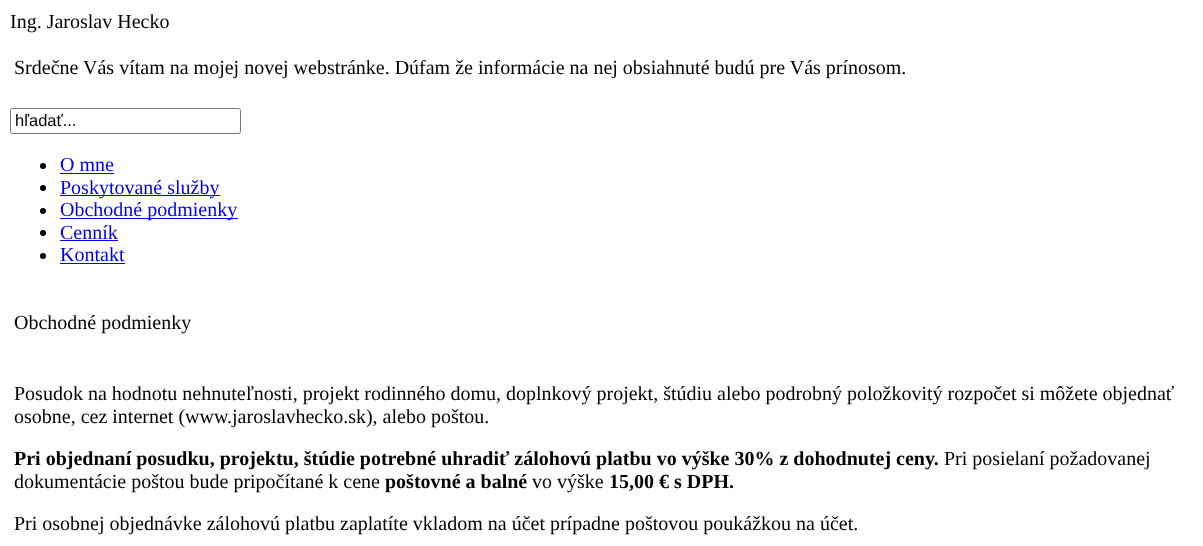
<svg xmlns="http://www.w3.org/2000/svg" xmlns:xlink="http://www.w3.org/1999/xlink" width="1203" height="546" viewBox="0 0 1203 546">
<style>
.cls-1{font:20px Liberation Serif;fill:#000000}
.cls-2{font:16.5px Liberation Sans;fill:#000000}
.cls-3{font:20px Liberation Serif;fill:#0000ee}
.cls-4{font:bold 20px Liberation Serif;fill:#000000}
</style>
<rect width="100%" height="100%" fill="#ffffff"/>
<rect fill="none" stroke="#767676" x="10.5" y="108.5" width="230" height="25" rx="2"/>
<circle fill="#000000" cx="43" cy="166" r="3"/>
<rect fill="#0000ee" x="60" y="173" width="54" height="1"/>
<circle fill="#000000" cx="43" cy="188" r="3"/>
<rect fill="#0000ee" x="60" y="195" width="160" height="1"/>
<circle fill="#000000" cx="43" cy="211" r="3"/>
<rect fill="#0000ee" x="60" y="218" width="178" height="1"/>
<circle fill="#000000" cx="43" cy="233" r="3"/>
<rect fill="#0000ee" x="60" y="240" width="58" height="1"/>
<circle fill="#000000" cx="43" cy="256" r="3"/>
<rect fill="#0000ee" x="60" y="263" width="65" height="1"/>
<text class="cls-1" x="10" y="28">Ing. Jaroslav Hecko</text>
<text class="cls-1" x="14" y="74">Srdečne Vás vítam na mojej novej webstránke. Dúfam že informácie na nej obsiahnuté budú pre Vás prínosom.</text>
<text class="cls-2" x="15" y="126">hľadať...</text>
<text class="cls-3"><tspan x="60" y="171">O mne</tspan><tspan x="60" y="194">Poskytované služby</tspan><tspan x="60" y="216">Obchodné podmienky</tspan><tspan x="60" y="239">Cenník</tspan><tspan x="60" y="261">Kontakt</tspan></text>
<text class="cls-1" x="14" y="329">Obchodné podmienky</text>
<text class="cls-1"><tspan x="14" y="400">Posudok na hodnotu nehnuteľnosti, projekt rodinného domu, doplnkový projekt, štúdiu alebo podrobný položkovitý rozpočet si môžete objednať</tspan><tspan x="14" y="423">osobne, cez internet (www.jaroslavhecko.sk), alebo poštou.</tspan></text>
<text class="cls-4" x="14" y="465">Pri objednaní posudku, projektu, štúdie potrebné uhradiť zálohovú platbu vo výške 30% z dohodnutej ceny.</text>
<text class="cls-1" x="944" y="465">Pri posielaní požadovanej</text>
<text class="cls-1" x="14" y="488">dokumentácie poštou bude pripočítané k cene</text>
<text class="cls-4" x="385" y="488">poštovné a balné</text>
<text class="cls-1" x="532" y="488">vo výške</text>
<text class="cls-4" x="609" y="488">15,00 € s DPH.</text>
<text class="cls-1" x="14" y="530">Pri osobnej objednávke zálohovú platbu zaplatíte vkladom na účet prípadne poštovou poukážkou na účet.</text>
</svg>
